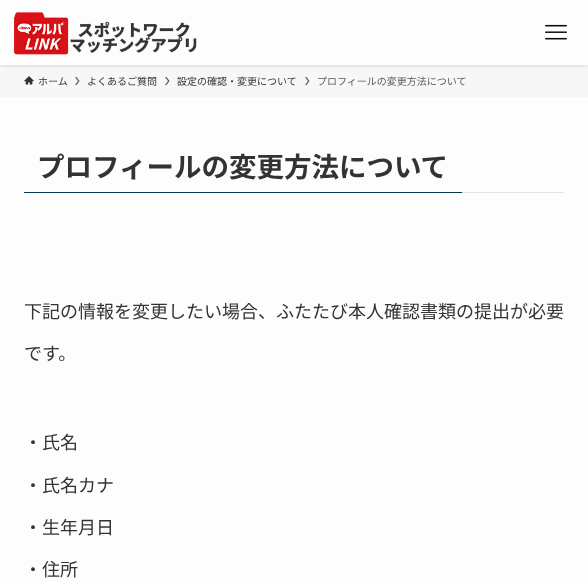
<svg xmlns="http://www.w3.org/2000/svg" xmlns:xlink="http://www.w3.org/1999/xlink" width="588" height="582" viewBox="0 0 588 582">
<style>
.cls-1{font:10px Noto Sans JP;fill:#333333}
.cls-2{font:10px Noto Sans JP;fill:#5a5a5a}
.cls-3{font:bold 27.5px Noto Sans JP;fill:#333333}
.cls-4{font:18px Noto Sans JP;fill:#333333}
</style>
<defs>
<clipPath id="clip1"><rect x="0" y="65" width="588" height="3"/></clipPath>
</defs>
<rect width="100%" height="100%" fill="#fdfdfd"/>
<rect fill="#f7f7f7" x="0" y="65" width="588" height="32"/>
<g clip-path="url(#clip1)">
<rect fill="#000000" fill-opacity="0.12" filter="blur(2px)" x="0" y="1" width="588" height="65"/>
</g>
<image xlink:href="image0.png" x="14" y="12" width="183" height="43"/>
<image xlink:href="image1.png" x="545" y="24" width="22" height="16"/>
<image xlink:href="image2.png" x="24" y="76" width="10" height="9"/>
<path fill="#5a5a5a" d="M76.5 77H75L78 81L75 85H76.5L79.5 81Z"/>
<path fill="#5a5a5a" d="M166.5 77H165L168 81L165 85H166.5L169.5 81Z"/>
<path fill="#5a5a5a" d="M306.5 77H305L308 81L305 85H306.5L309.5 81Z"/>
<rect fill="#e2e2e2" x="462" y="192" width="102" height="1"/>
<rect fill="#04384c" x="24" y="192" width="438" height="1"/>
<text class="cls-1" x="38" y="85">ホーム</text>
<text class="cls-1" x="87" y="85">よくあるご質問</text>
<text class="cls-1" x="177" y="85">設定の確認・変更について</text>
<text class="cls-2" x="317" y="85">プロフィールの変更方法について</text>
<text class="cls-3" x="37" y="177">プロフィールの変更方法について</text>
<text class="cls-4" x="24" y="318">下記の情報を変更したい場合、ふたたび本人確認書類の提出が必要</text>
<text class="cls-4" x="24" y="360">です。</text>
<text class="cls-4" x="24" y="449">・氏名</text>
<text class="cls-4" x="24" y="492">・氏名カナ</text>
<text class="cls-4" x="24" y="534">・生年月日</text>
<text class="cls-4" x="24" y="576">・住所</text>
</svg>
